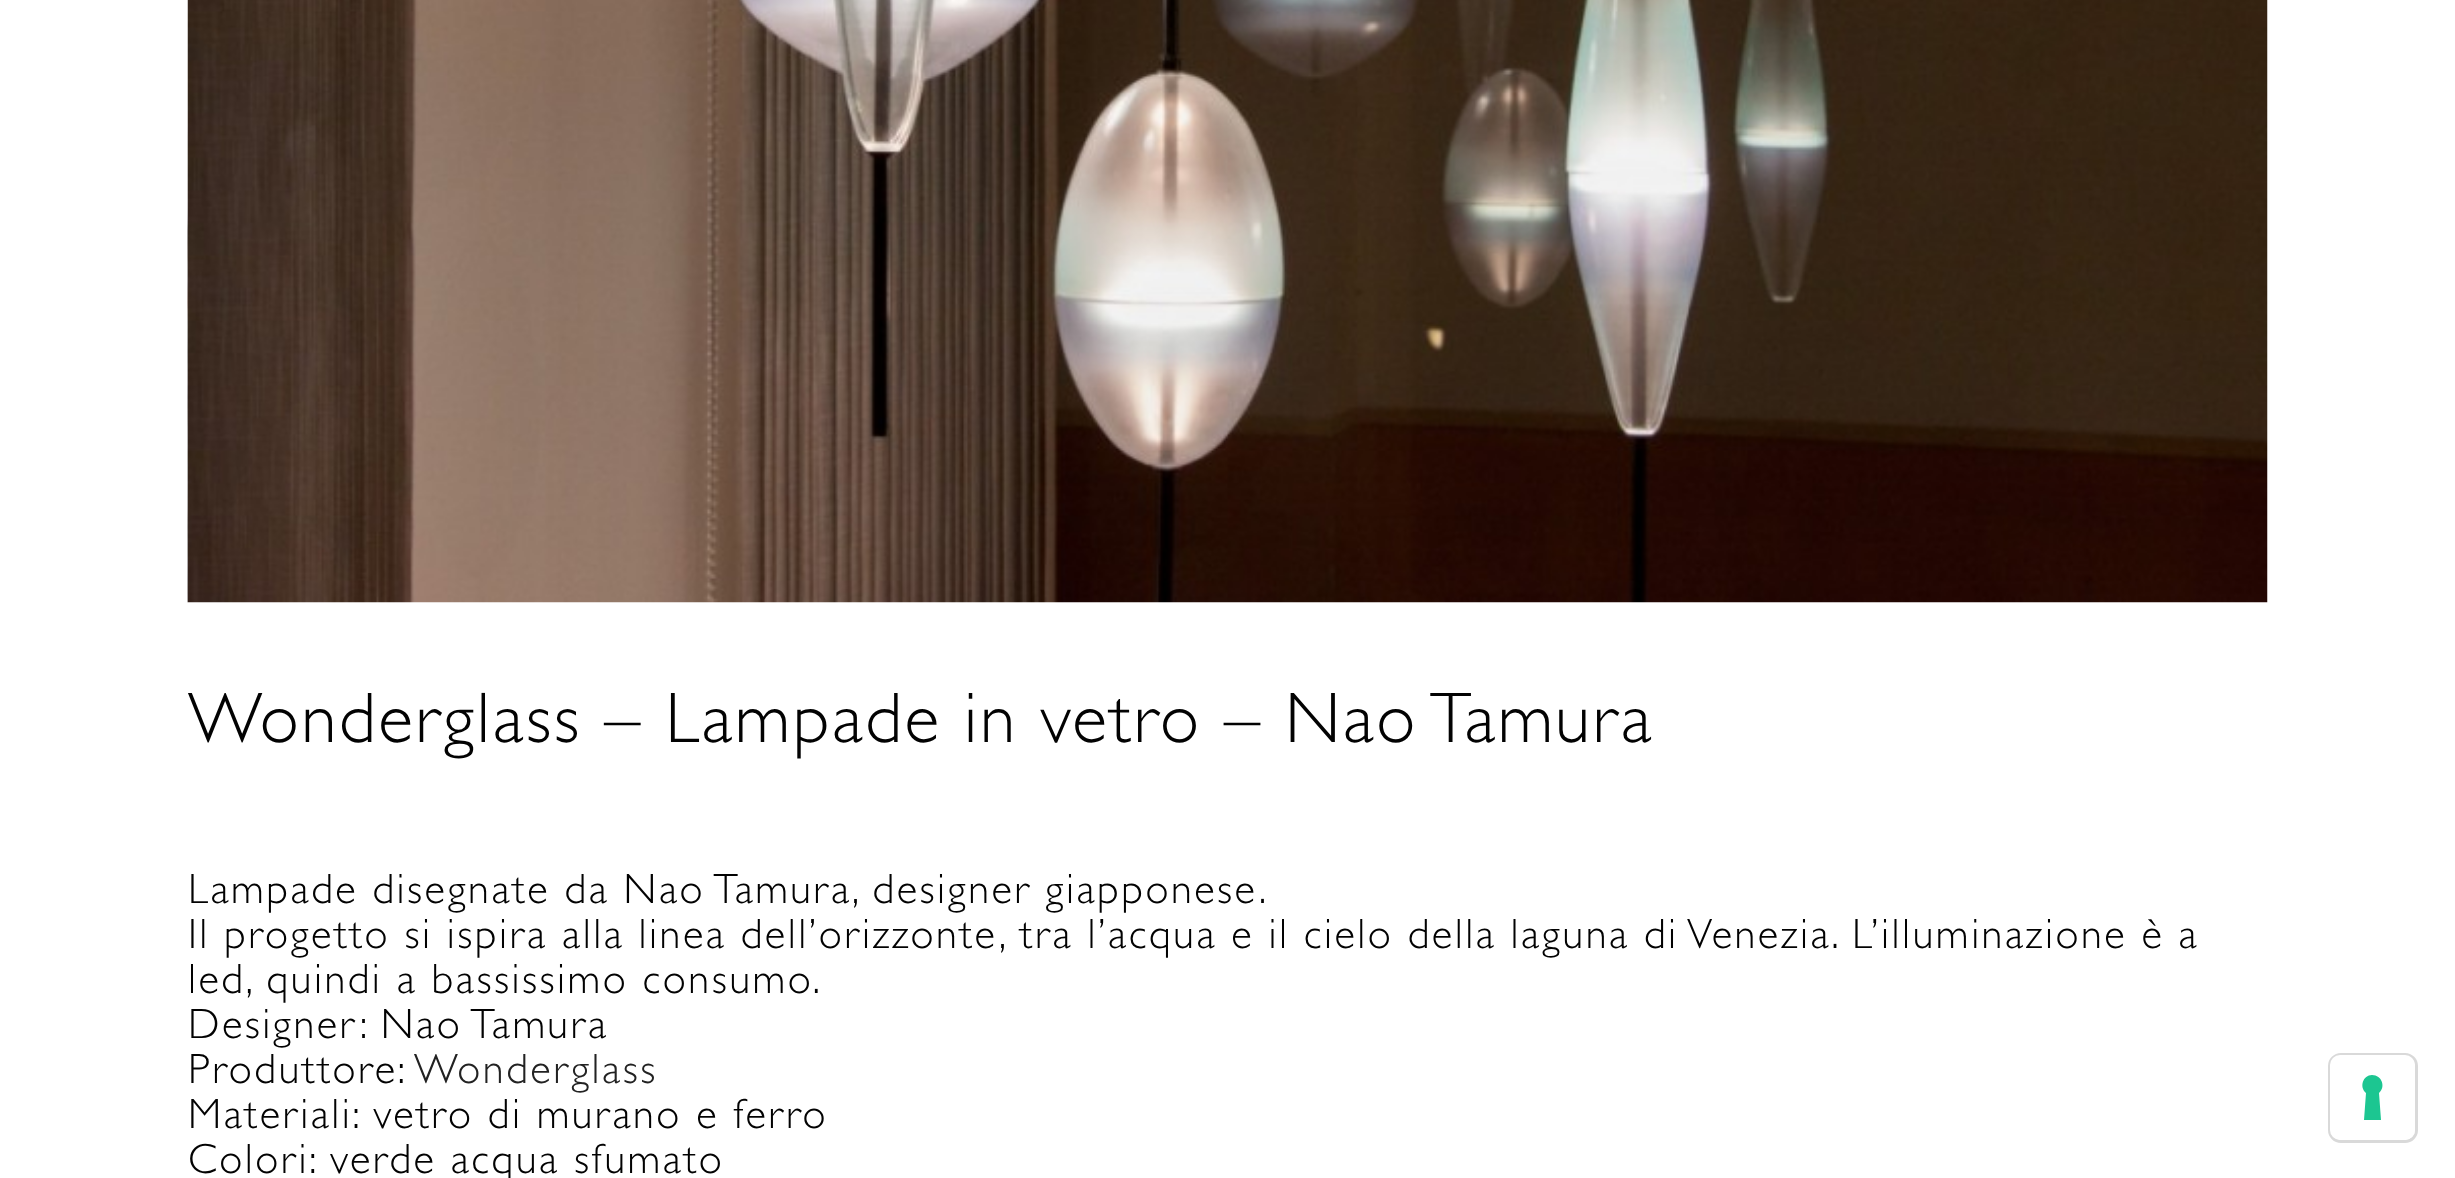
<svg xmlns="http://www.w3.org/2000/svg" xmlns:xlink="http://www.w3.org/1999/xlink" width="2455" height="1178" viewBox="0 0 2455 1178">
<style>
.cls-1{font:300 72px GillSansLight;letter-spacing:2.5px;fill:#020202}
.cls-2{font:300 42.5px GillSansLight;letter-spacing:2.5px;fill:#020202}
.cls-3{font:300 42.5px GillSansLight;letter-spacing:2.5px;fill:#222222}
</style>
<rect width="100%" height="100%" fill="#ffffff"/>
<image xlink:href="image0.png" x="187" y="0" width="1" height="603"/>
<image xlink:href="image1.png" x="187" y="0" width="1" height="603"/>
<image xlink:href="image2.png" x="187" y="0" width="2081" height="603"/>
<rect fill="none" stroke="#d9d9d9" stroke-width="3" x="2329.5" y="1054.5" width="87" height="87" rx="11.5"/>
<rect fill="#ffffff" x="2330" y="1055" width="85" height="85" rx="10"/>
<path fill="#1cc691" fill-rule="evenodd" d="M2372 1075C2382 1075 2386 1087 2379 1093L2381 1120H2364L2366 1093C2359 1087 2363 1075 2372 1075Z"/>
<text class="cls-1" x="188" y="742">Wonderglass – Lampade in vetro – Nao Tamura</text>
<text class="cls-2"><tspan x="188" y="903">Lampade disegnate da Nao Tamura, designer giapponese.</tspan><tspan x="188" y="948">Il progetto si ispira alla linea dell’orizzonte, tra l’acqua e il cielo della laguna di Venezia. L’illuminazione è a</tspan><tspan x="188" y="993">led, quindi a bassissimo consumo.</tspan><tspan x="188" y="1038">Designer: Nao Tamura</tspan><tspan x="188" y="1083">Produttore:</tspan></text>
<text class="cls-3" x="414" y="1083">Wonderglass</text>
<text class="cls-2"><tspan x="188" y="1128">Materiali: vetro di murano e ferro</tspan><tspan x="188" y="1173">Colori: verde acqua sfumato</tspan></text>
</svg>
